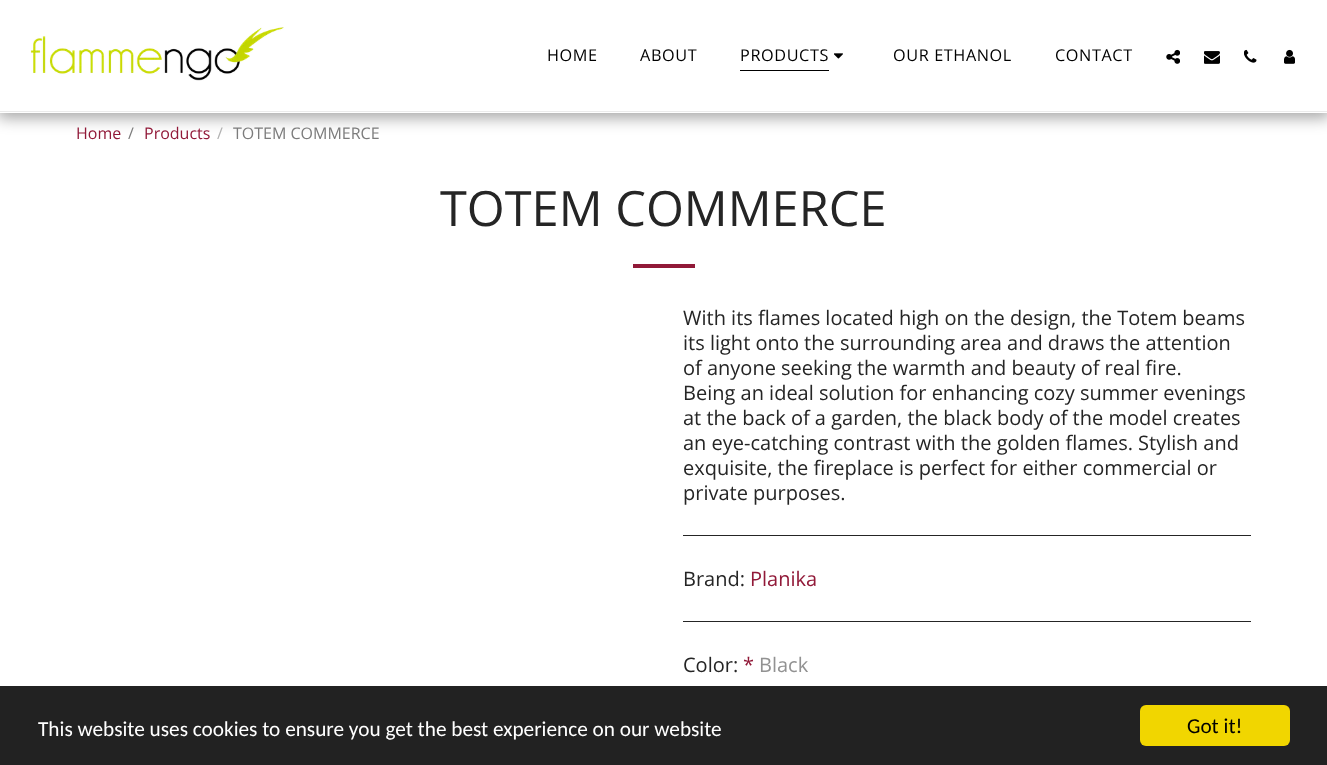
<svg xmlns="http://www.w3.org/2000/svg" xmlns:xlink="http://www.w3.org/1999/xlink" width="1327" height="765" viewBox="0 0 1327 765">
<style>
.cls-1{font:16.25px Open Sans;letter-spacing:0.6px;fill:#000000}
.cls-2{font:16px Open Sans;fill:#911938}
.cls-3{font:16px Open Sans;fill:#7c7c7c}
.cls-4{font:16px Open Sans;fill:#b1b1b1}
.cls-5{font:48.75px Open Sans;fill:#252525}
.cls-6{font:20px Open Sans;fill:#252525}
.cls-7{font:20px Open Sans;fill:#911938}
.cls-8{font:20px Open Sans;fill:#929292}
.cls-9{font:21.25px Carlito;fill:#ffffff}
.cls-10{font:21.25px Carlito;fill:#000000}
</style>
<rect width="100%" height="100%" fill="#ffffff"/>
<rect fill="#000000" fill-opacity="0.35" filter="blur(7.5px)" x="-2" y="0" width="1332" height="118"/>
<rect fill="#ffffff" x="0" y="0" width="1327" height="113"/>
<rect fill="#ebebeb" x="0" y="111" width="1327" height="1"/>
<image xlink:href="image0.png" x="30" y="27" width="254" height="54"/>
<rect fill="#000000" x="740" y="70" width="89" height="1"/>
<image xlink:href="image1.png" x="834" y="53" width="9" height="6"/>
<image xlink:href="image2.png" x="1166" y="49" width="14" height="15"/>
<image xlink:href="image3.png" x="1204" y="51" width="16" height="13"/>
<image xlink:href="image4.png" x="1244" y="49" width="13" height="14"/>
<image xlink:href="image5.png" x="1284" y="49" width="11" height="15"/>
<rect fill="#911938" x="633" y="264" width="62" height="4"/>
<rect fill="#252525" x="683" y="535" width="568" height="1"/>
<rect fill="#252525" x="683" y="621" width="568" height="1"/>
<rect fill="#222222" x="0" y="686" width="1327" height="79"/>
<rect fill="#f1d600" x="1140" y="705" width="150" height="41" rx="6"/>
<text class="cls-1" x="547" y="61">HOME</text>
<text class="cls-1" x="640" y="61">ABOUT</text>
<text class="cls-1" x="740" y="61">PRODUCTS</text>
<text class="cls-1" x="893" y="61">OUR ETHANOL</text>
<text class="cls-1" x="1055" y="61">CONTACT</text>
<text class="cls-2" x="76" y="139">Home</text>
<text class="cls-3" x="128" y="139">/</text>
<text class="cls-2" x="144" y="139">Products</text>
<text class="cls-4" x="217" y="139">/</text>
<text class="cls-3" x="233" y="139">TOTEM COMMERCE</text>
<text class="cls-5" x="440" y="226">TOTEM COMMERCE</text>
<text class="cls-6"><tspan x="683" y="325">With its flames located high on the design, the Totem beams</tspan><tspan x="683" y="350">its light onto the surrounding area and draws the attention</tspan><tspan x="683" y="375">of anyone seeking the warmth and beauty of real fire.</tspan><tspan x="683" y="400">Being an ideal solution for enhancing cozy summer evenings</tspan><tspan x="683" y="425">at the back of a garden, the black body of the model creates</tspan><tspan x="683" y="450">an eye-catching contrast with the golden flames. Stylish and</tspan><tspan x="683" y="475">exquisite, the fireplace is perfect for either commercial or</tspan><tspan x="683" y="500">private purposes.</tspan></text>
<text class="cls-6" x="683" y="586">Brand:</text>
<text class="cls-7" x="750" y="586">Planika</text>
<text class="cls-6" x="683" y="672">Color:</text>
<text class="cls-7" x="743" y="672">*</text>
<text class="cls-8" x="759" y="672">Black</text>
<text class="cls-9" x="38" y="736">This website uses cookies to ensure you get the best experience on our website</text>
<text class="cls-10" x="1187" y="733">Got it!</text>
</svg>
